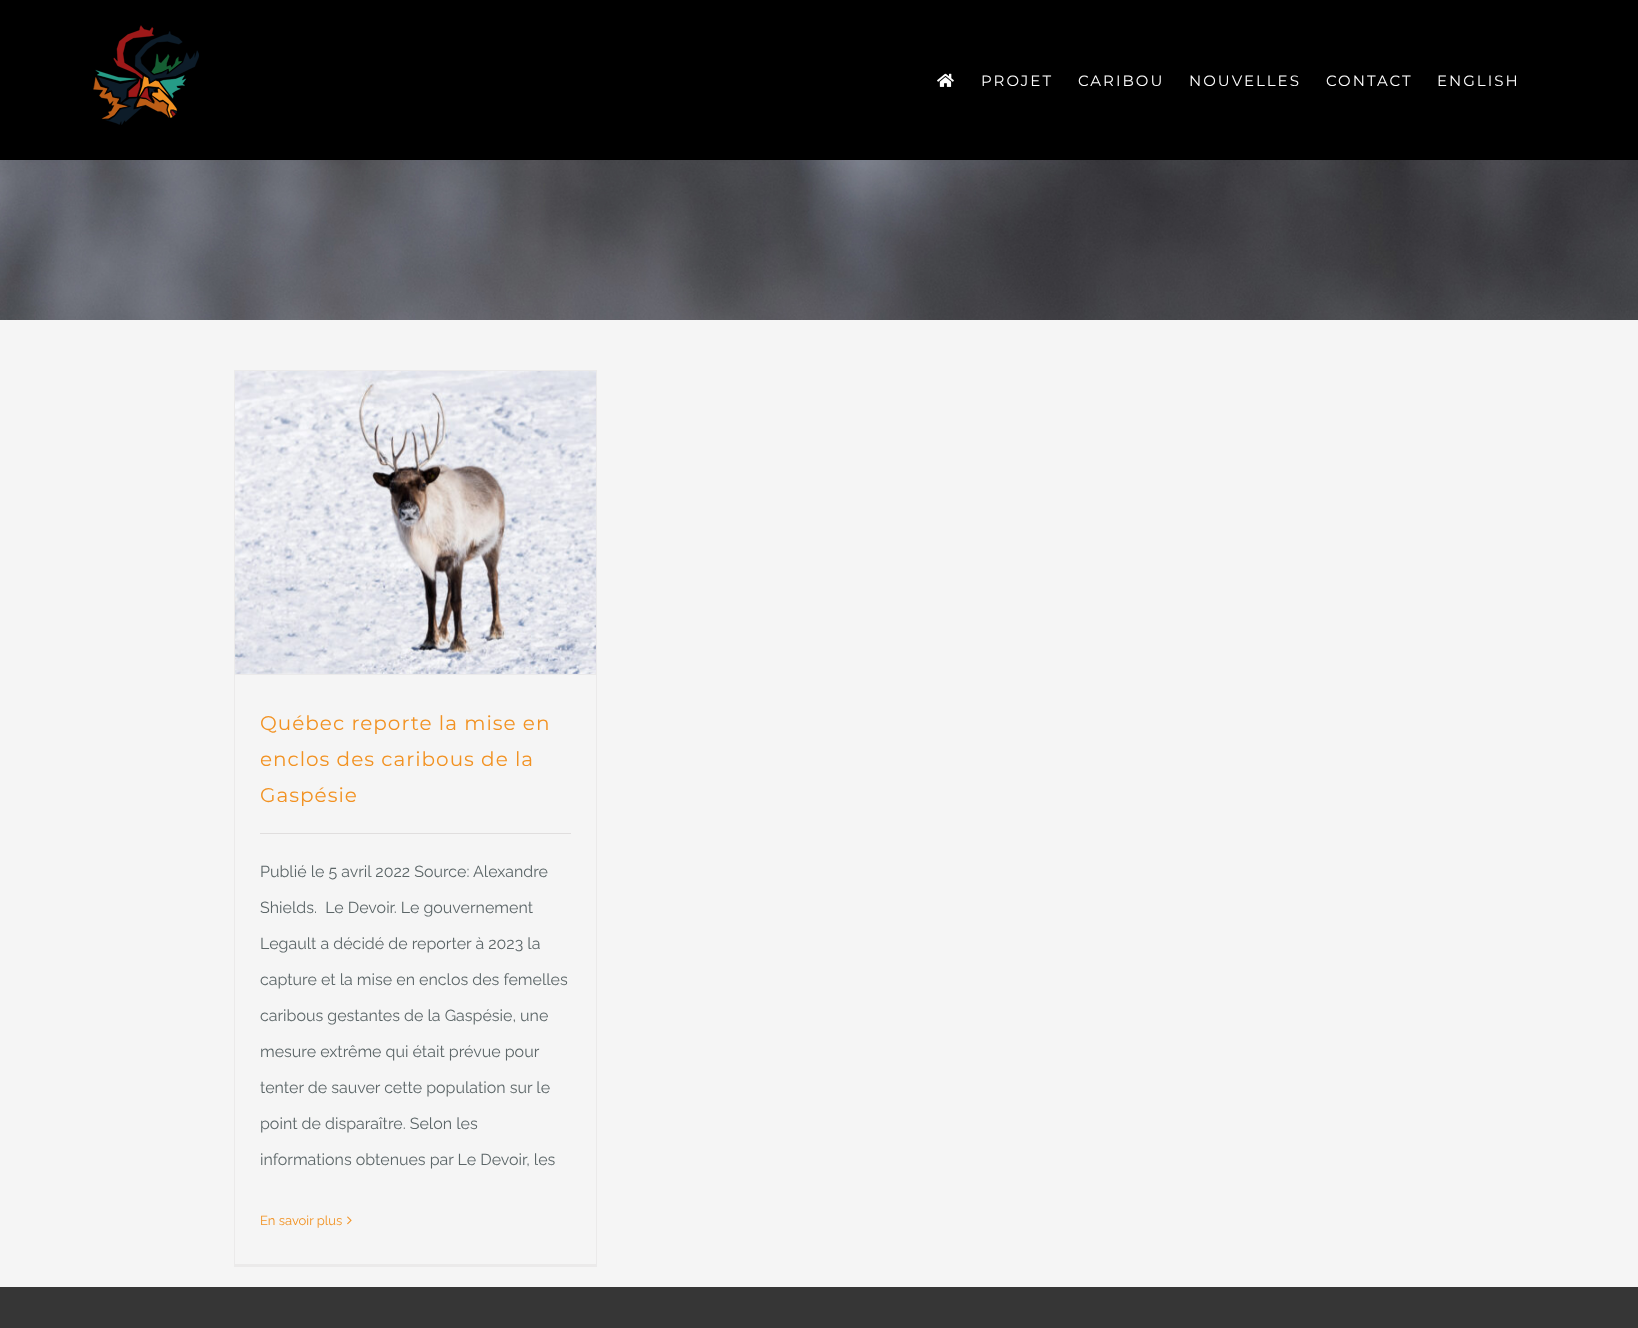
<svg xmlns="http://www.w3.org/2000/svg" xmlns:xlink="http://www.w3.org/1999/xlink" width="1638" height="1328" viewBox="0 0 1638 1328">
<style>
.cls-1{font:15px Montserrat;letter-spacing:2px;fill:#ffffff}
.cls-2{font:20px Montserrat;letter-spacing:1px;fill:#f29222}
.cls-3{font:16px Raleway;fill:#5c6668}
.cls-4{font:13px Raleway;fill:#f29222}
</style>
<rect width="100%" height="100%" fill="#f5f5f5"/>
<rect fill="#000000" x="0" y="0" width="1638" height="160"/>
<image xlink:href="image0.png" x="93" y="25" width="106" height="100"/>
<image xlink:href="image1.png" x="937" y="73" width="17" height="14"/>
<image xlink:href="image2.png" x="0" y="160" width="1638" height="160"/>
<rect fill="#ebeaea" x="234" y="370" width="363" height="1"/>
<rect fill="#ebeaea" x="596" y="370" width="1" height="897"/>
<rect fill="#ebeaea" x="234" y="1264" width="363" height="3"/>
<rect fill="#ebeaea" x="234" y="370" width="1" height="897"/>
<rect fill="#ebeaea" x="235" y="674" width="361" height="1"/>
<image xlink:href="image3.png" x="235" y="371" width="361" height="303"/>
<rect fill="#e0dede" x="260" y="833" width="311" height="1"/>
<image xlink:href="image4.png" x="347" y="1216" width="5" height="9"/>
<rect fill="#363636" x="0" y="1287" width="1638" height="41"/>
<text class="cls-1" x="981" y="86">PROJET</text>
<text class="cls-1" x="1078" y="86">CARIBOU</text>
<text class="cls-1" x="1189" y="86">NOUVELLES</text>
<text class="cls-1" x="1326" y="86">CONTACT</text>
<text class="cls-1" x="1437" y="86">ENGLISH</text>
<text class="cls-2"><tspan x="260" y="730">Québec reporte la mise en</tspan><tspan x="260" y="766">enclos des caribous de la</tspan><tspan x="260" y="802">Gaspésie</tspan></text>
<text class="cls-3" x="260" y="877">Publié le 5 avril 2022 Source: Alexandre</text>
<text class="cls-3" xml:space="preserve" x="260" y="913">Shields.  Le Devoir. Le gouvernement</text>
<text class="cls-3" x="260" y="949">Legault a décidé de reporter à 2023 la</text>
<text class="cls-3" x="260" y="985">capture et la mise en enclos des femelles</text>
<text class="cls-3" x="260" y="1021">caribous gestantes de la Gaspésie, une</text>
<text class="cls-3" x="260" y="1057">mesure extrême qui était prévue pour</text>
<text class="cls-3" x="260" y="1093">tenter de sauver cette population sur le</text>
<text class="cls-3" x="260" y="1129">point de disparaître. Selon les</text>
<text class="cls-3" x="260" y="1165">informations obtenues par Le Devoir, les</text>
<text class="cls-4" x="260" y="1225">En savoir plus</text>
</svg>
